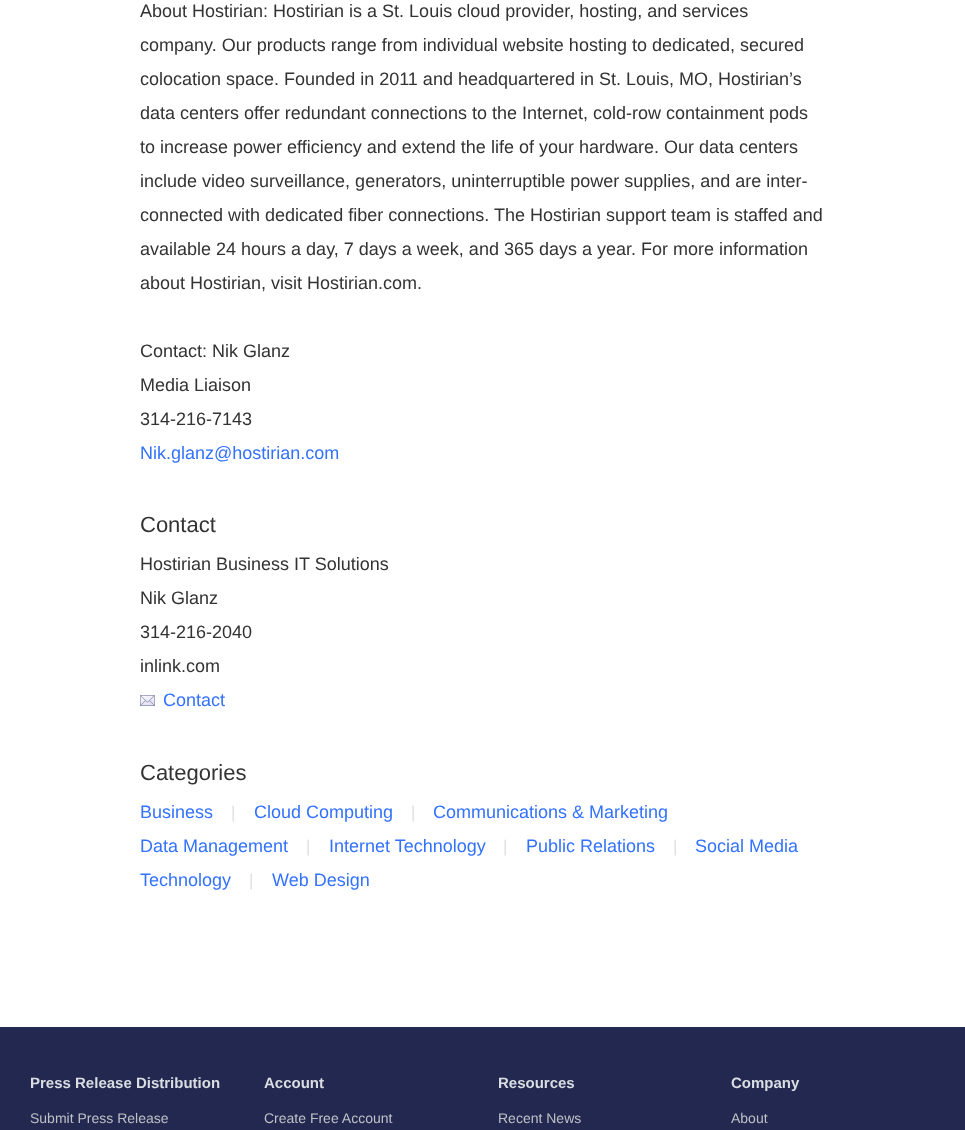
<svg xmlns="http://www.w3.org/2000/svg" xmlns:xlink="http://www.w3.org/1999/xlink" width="965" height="1130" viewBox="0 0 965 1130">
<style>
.cls-1{font:18px Liberation Sans;fill:#333333}
.cls-2{font:18px Liberation Sans;fill:#3372ff}
.cls-3{font:22px Liberation Sans;fill:#333333}
.cls-4{font:17px Liberation Sans;fill:#e0e0e0}
.cls-5{font:bold 15px Liberation Sans;fill:#dadee2}
.cls-6{font:14px Liberation Sans;fill:#bdc1c6}
</style>
<rect width="100%" height="100%" fill="#ffffff"/>
<image xlink:href="image0.png" x="140" y="695" width="15" height="11"/>
<rect fill="#232850" x="0" y="1027" width="965" height="103"/>
<text class="cls-1"><tspan x="140" y="17">About Hostirian: Hostirian is a St. Louis cloud provider, hosting, and services</tspan><tspan x="140" y="51">company. Our products range from individual website hosting to dedicated, secured</tspan><tspan x="140" y="85">colocation space. Founded in 2011 and headquartered in St. Louis, MO, Hostirian’s</tspan><tspan x="140" y="119">data centers offer redundant connections to the Internet, cold-row containment pods</tspan><tspan x="140" y="153">to increase power efficiency and extend the life of your hardware. Our data centers</tspan><tspan x="140" y="187">include video surveillance, generators, uninterruptible power supplies, and are inter-</tspan><tspan x="140" y="221">connected with dedicated fiber connections. The Hostirian support team is staffed and</tspan><tspan x="140" y="255">available 24 hours a day, 7 days a week, and 365 days a year. For more information</tspan><tspan x="140" y="289">about Hostirian, visit Hostirian.com.</tspan></text>
<text class="cls-1"><tspan x="140" y="357">Contact: Nik Glanz</tspan><tspan x="140" y="391">Media Liaison</tspan><tspan x="140" y="425">314-216-7143</tspan></text>
<text class="cls-2" x="140" y="459">Nik.glanz@hostirian.com</text>
<text class="cls-3" x="140" y="532">Contact</text>
<text class="cls-1"><tspan x="140" y="570">Hostirian Business IT Solutions</tspan><tspan x="140" y="604">Nik Glanz</tspan><tspan x="140" y="638">314-216-2040</tspan><tspan x="140" y="672">inlink.com</tspan></text>
<text class="cls-2" x="163" y="706">Contact</text>
<text class="cls-3" x="140" y="780">Categories</text>
<text class="cls-2" x="140" y="818">Business</text>
<text class="cls-4" x="231" y="818">|</text>
<text class="cls-2" x="254" y="818">Cloud Computing</text>
<text class="cls-4" x="411" y="818">|</text>
<text class="cls-2" x="433" y="818">Communications &amp; Marketing</text>
<text class="cls-2" x="140" y="852">Data Management</text>
<text class="cls-4" x="306" y="852">|</text>
<text class="cls-2" x="329" y="852">Internet Technology</text>
<text class="cls-4" x="503" y="852">|</text>
<text class="cls-2" x="526" y="852">Public Relations</text>
<text class="cls-4" x="673" y="852">|</text>
<text class="cls-2" x="695" y="852">Social Media</text>
<text class="cls-2" x="140" y="886">Technology</text>
<text class="cls-4" x="249" y="886">|</text>
<text class="cls-2" x="272" y="886">Web Design</text>
<text class="cls-5" x="30" y="1088">Press Release Distribution</text>
<text class="cls-6" x="30" y="1123">Submit Press Release</text>
<text class="cls-5" x="264" y="1088">Account</text>
<text class="cls-6" x="264" y="1123">Create Free Account</text>
<text class="cls-5" x="498" y="1088">Resources</text>
<text class="cls-6" x="498" y="1123">Recent News</text>
<text class="cls-5" x="731" y="1088">Company</text>
<text class="cls-6" x="731" y="1123">About</text>
</svg>
